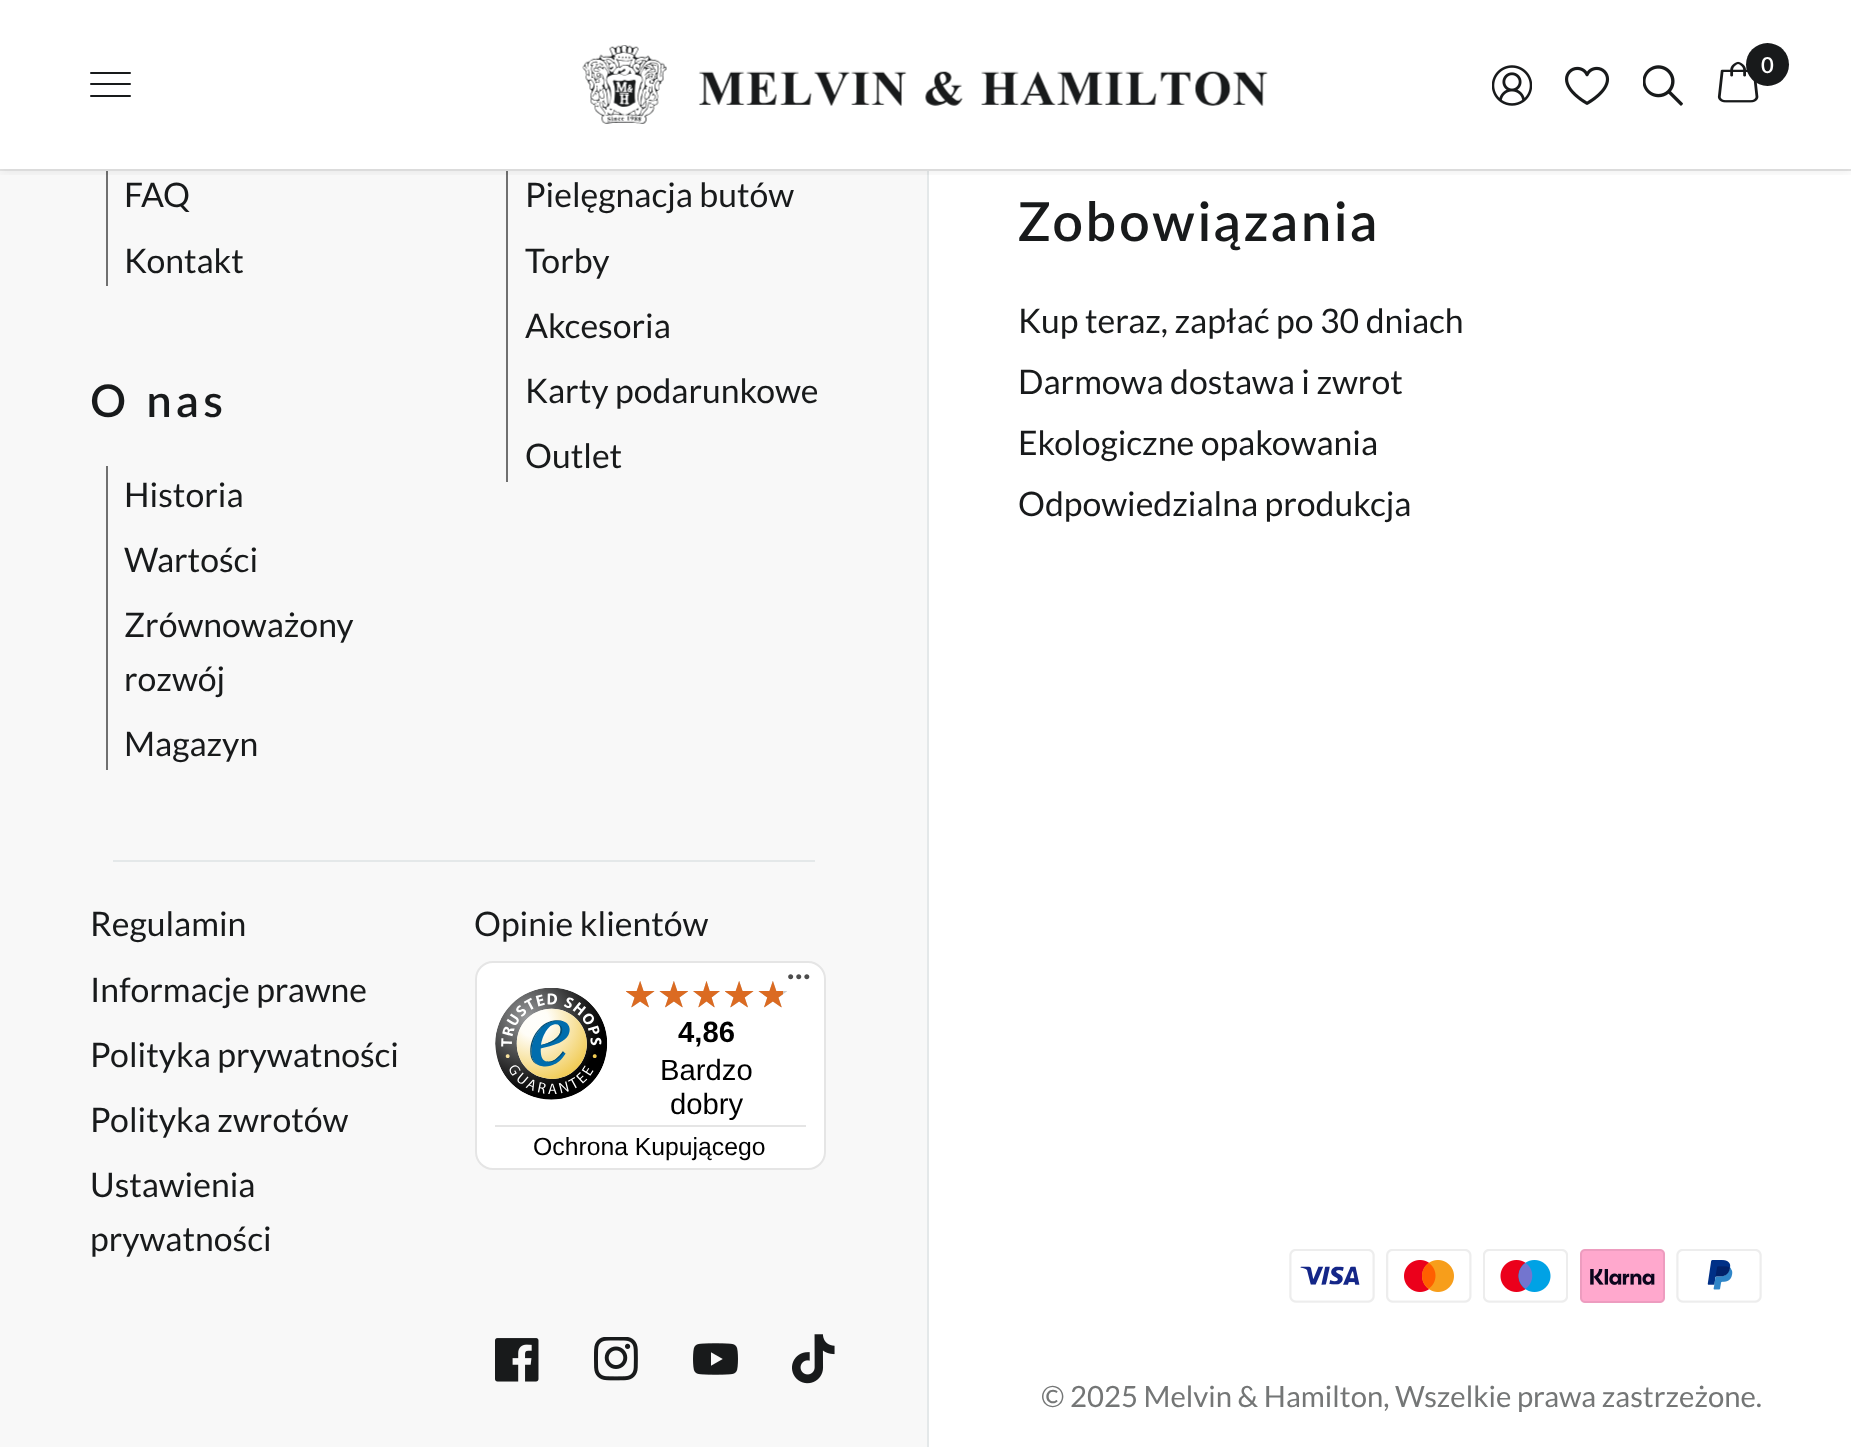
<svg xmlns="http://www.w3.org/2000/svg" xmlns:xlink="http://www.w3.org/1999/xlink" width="1851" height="1447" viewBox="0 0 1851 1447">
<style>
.cls-1{font:600 22px Lato;fill:#ffffff}
.cls-2{font:33.75px Lato;fill:#181a1b}
.cls-3{font:600 45px Lato;letter-spacing:4.5px;fill:#181a1b}
.cls-4{font:600 54px Lato;letter-spacing:2.75px;fill:#181a1b}
.cls-5{font:bold 29.25px Liberation Sans;fill:#000000}
.cls-6{font:29.25px Liberation Sans;fill:#000000}
.cls-7{font:24.75px Liberation Sans;fill:#000000}
.cls-8{font:29.25px Lato;fill:#747676}
</style>
<defs>
<clipPath id="clip1"><rect x="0" y="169" width="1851" height="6"/></clipPath>
</defs>
<rect width="100%" height="100%" fill="#f8f8f8"/>
<path fill="#e4e8e9" fill-rule="evenodd" d="M999-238H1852V770H927V-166C927-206 959-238 999-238ZM999-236H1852V770H929V-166C929-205 960-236 999-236Z"/>
<rect fill="#ffffff" x="0" y="0" width="1851" height="169"/>
<rect fill="#e5e5e5" x="0" y="169" width="1851" height="2"/>
<rect fill="#707070" x="106" y="171" width="2" height="115"/>
<rect fill="#707070" x="506" y="171" width="2" height="311"/>
<rect fill="#ffffff" x="929" y="171" width="922" height="1276"/>
<g clip-path="url(#clip1)">
<rect fill="#000000" fill-opacity="0.06" filter="blur(5.5px)" x="0" y="5" width="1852" height="168"/>
</g>
<image xlink:href="image0.png" x="582" y="45" width="686" height="79"/>
<image xlink:href="image1.png" x="1492" y="65" width="40" height="41"/>
<image xlink:href="image2.png" x="1565" y="66" width="45" height="39"/>
<image xlink:href="image3.png" x="1643" y="65" width="40" height="41"/>
<image xlink:href="image4.png" x="1717" y="61" width="42" height="42"/>
<circle fill="#181a1b" cx="1767.5" cy="64.5" r="21.5"/>
<rect fill="#181a1b" x="90" y="72" width="41" height="2" rx="1"/>
<rect fill="#181a1b" x="90" y="83" width="41" height="2" rx="1"/>
<rect fill="#181a1b" x="90" y="95" width="41" height="2" rx="1"/>
<rect fill="#707070" x="106" y="466" width="2" height="304"/>
<rect fill="#e4e8e9" x="113" y="860" width="702" height="2"/>
<rect fill="#ffffff" stroke="#e5e5e5" stroke-width="2" x="476" y="962" width="349" height="207" rx="17"/>
<image xlink:href="image5.png" x="788" y="974" width="22" height="6"/>
<image xlink:href="image6.png" x="495" y="988" width="113" height="112"/>
<image xlink:href="image7.png" x="626" y="981" width="29" height="27"/>
<image xlink:href="image8.png" x="659" y="981" width="29" height="27"/>
<image xlink:href="image9.png" x="693" y="981" width="27" height="27"/>
<image xlink:href="image7.png" x="725" y="981" width="29" height="27"/>
<image xlink:href="image10.png" x="758" y="981" width="29" height="27"/>
<image xlink:href="image11.png" x="626" y="981" width="29" height="27"/>
<image xlink:href="image12.png" x="659" y="981" width="30" height="27"/>
<image xlink:href="image13.png" x="693" y="981" width="27" height="27"/>
<image xlink:href="image11.png" x="725" y="981" width="29" height="27"/>
<image xlink:href="image14.png" x="758" y="981" width="25" height="27"/>
<rect fill="#e5e5e5" x="495" y="1125" width="311" height="2"/>
<image xlink:href="image15.png" x="495" y="1338" width="44" height="44"/>
<image xlink:href="image16.png" x="594" y="1337" width="44" height="44"/>
<image xlink:href="image17.png" x="693" y="1343" width="45" height="32"/>
<image xlink:href="image18.png" x="792" y="1334" width="43" height="50"/>
<rect fill="#e4e8e9" x="927" y="770" width="2" height="677"/>
<image xlink:href="image19.png" x="1289" y="1249" width="86" height="54"/>
<image xlink:href="image20.png" x="1386" y="1249" width="86" height="54"/>
<image xlink:href="image21.png" x="1483" y="1249" width="85" height="54"/>
<image xlink:href="image22.png" x="1580" y="1249" width="85" height="54"/>
<image xlink:href="image23.png" x="1676" y="1249" width="86" height="54"/>
<text class="cls-1" x="1761" y="73">0</text>
<text class="cls-2"><tspan x="124" y="207">FAQ</tspan><tspan x="124" y="273">Kontakt</tspan></text>
<text class="cls-2"><tspan x="525" y="207">Pielęgnacja butów</tspan><tspan x="525" y="273">Torby</tspan><tspan x="525" y="338">Akcesoria</tspan><tspan x="525" y="403">Karty podarunkowe</tspan><tspan x="525" y="468">Outlet</tspan></text>
<text class="cls-3" x="90" y="417">O nas</text>
<text class="cls-2"><tspan x="124" y="507">Historia</tspan><tspan x="124" y="572">Wartości</tspan><tspan x="124" y="637">Zrównoważony</tspan><tspan x="124" y="691">rozwój</tspan><tspan x="124" y="756">Magazyn</tspan></text>
<text class="cls-4" x="1018" y="241">Zobowiązania</text>
<text class="cls-2"><tspan x="1018" y="333">Kup teraz, zapłać po 30 dniach</tspan><tspan x="1018" y="394">Darmowa dostawa i zwrot</tspan><tspan x="1018" y="455">Ekologiczne opakowania</tspan><tspan x="1018" y="516">Odpowiedzialna produkcja</tspan></text>
<text class="cls-2"><tspan x="90" y="936">Regulamin</tspan><tspan x="90" y="1002">Informacje prawne</tspan><tspan x="90" y="1067">Polityka prywatności</tspan><tspan x="90" y="1132">Polityka zwrotów</tspan><tspan x="90" y="1197">Ustawienia</tspan><tspan x="90" y="1251">prywatności</tspan></text>
<text class="cls-2" x="474" y="936">Opinie klientów</text>
<text class="cls-5" x="678" y="1042">4,86</text>
<text class="cls-6" x="660" y="1080">Bardzo</text>
<text class="cls-6" x="670" y="1114">dobry</text>
<text class="cls-7" x="533" y="1155">Ochrona Kupującego</text>
<text class="cls-8" x="1041" y="1407">© 2025 Melvin &amp; Hamilton, Wszelkie prawa zastrzeżone.</text>
</svg>
